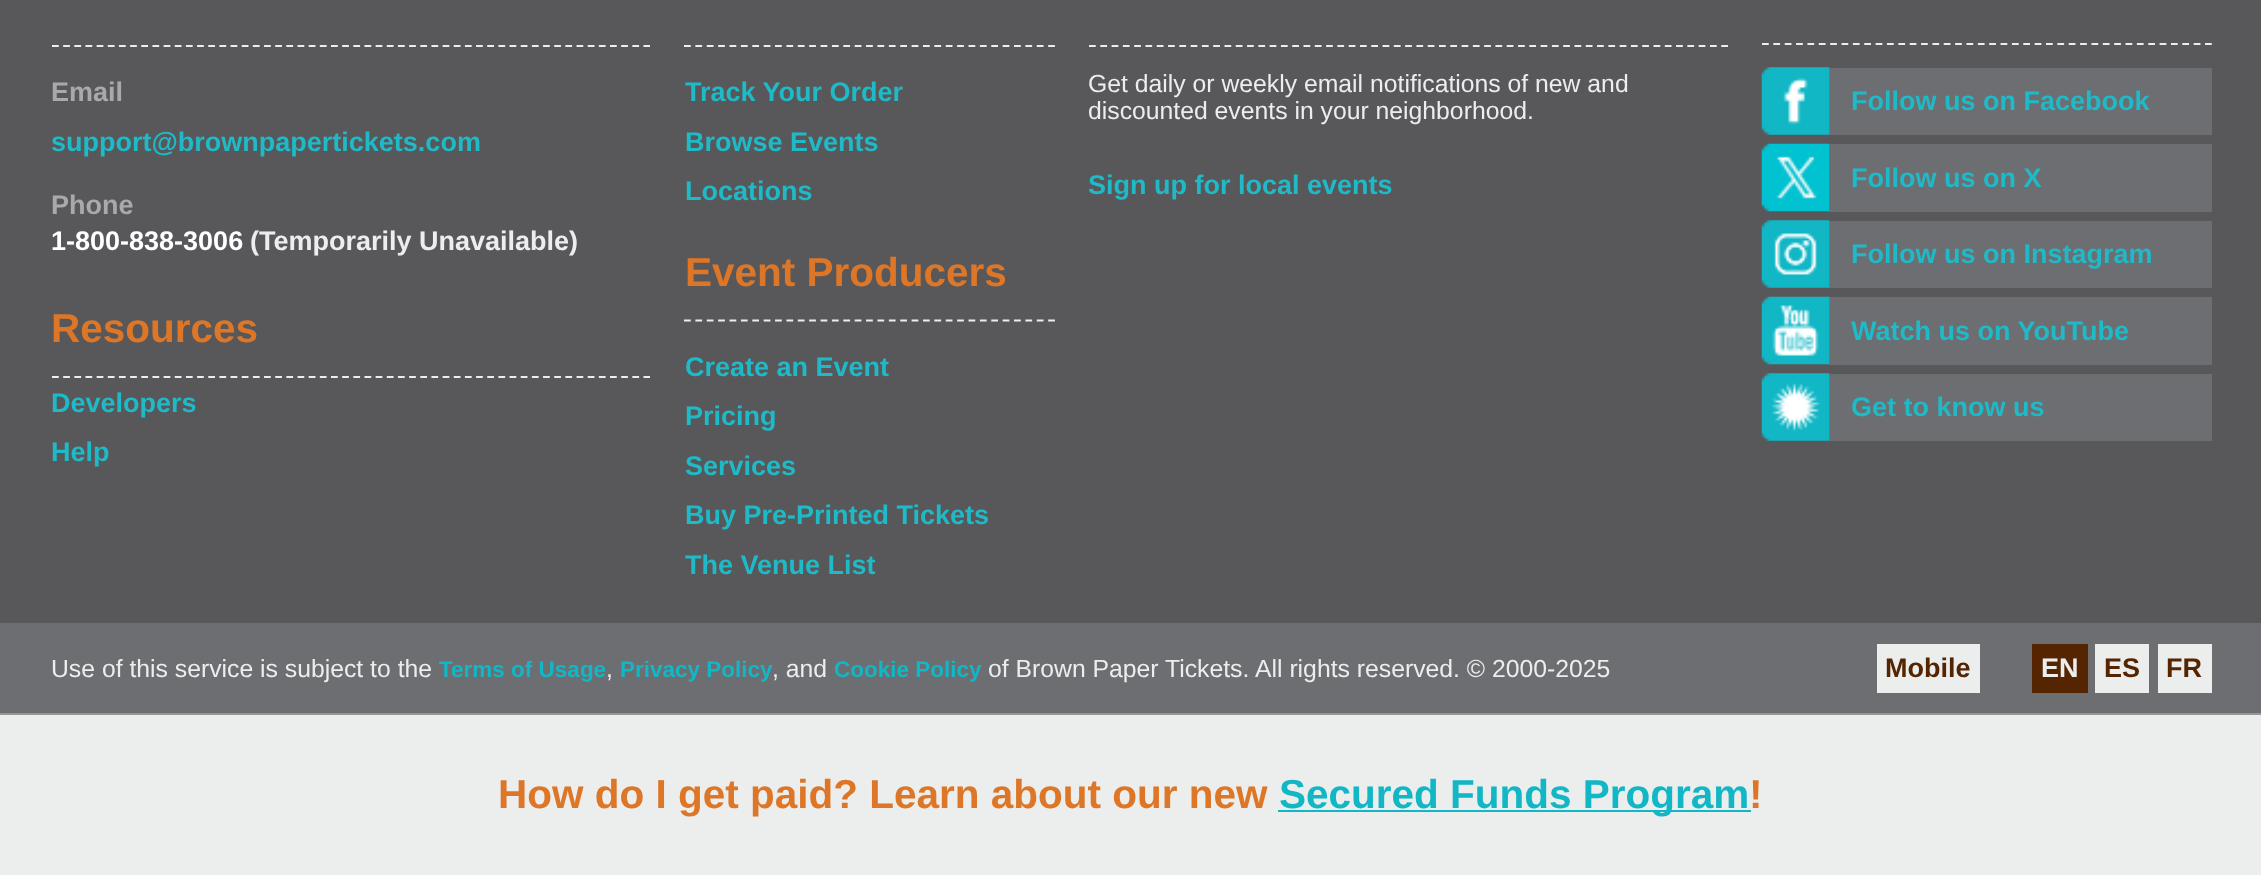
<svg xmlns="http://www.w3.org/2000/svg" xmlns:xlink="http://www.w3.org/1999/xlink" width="2261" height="875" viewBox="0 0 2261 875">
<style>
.cls-1{font:bold 27px Liberation Sans;fill:#a7a9ac}
.cls-2{font:bold 27px Liberation Sans;fill:#1fbac8}
.cls-3{font:bold 27px Liberation Sans;fill:#ffffff}
.cls-4{font:bold 27px Liberation Sans;fill:#eceded}
.cls-5{font:bold 40.5px Liberation Sans;fill:#dd7727}
.cls-6{font:24.75px Liberation Sans;fill:#eceded}
.cls-7{font:bold 22.5px Liberation Sans;fill:#12b7c6}
.cls-8{font:bold 27px Liberation Sans;fill:#552502}
.cls-9{font:bold 40.5px Liberation Sans;fill:#12b7c6}
</style>
<rect width="100%" height="100%" fill="#6d6e71"/>
<rect fill="#58585a" x="0" y="0" width="2261" height="623"/>
<path fill="none" stroke="#eceded" stroke-width="2.2" stroke-dasharray="6.75 4.41" d="M52 46H650"/>
<path fill="none" stroke="#eceded" stroke-width="2.2" stroke-dasharray="6.75 4.41" d="M52 377H650"/>
<path fill="none" stroke="#eceded" stroke-width="2.2" stroke-dasharray="6.75 4.63" d="M684 46H1055"/>
<path fill="none" stroke="#eceded" stroke-width="2.2" stroke-dasharray="6.75 4.63" d="M684 320.5H1055"/>
<path fill="none" stroke="#eceded" stroke-width="2.2" stroke-dasharray="6.75 4.54" d="M1089 46H1728"/>
<path fill="none" stroke="#eceded" stroke-width="2.2" stroke-dasharray="6.75 4.61" d="M1762 44H2212"/>
<rect fill="#58585a" x="1762" y="45" width="64" height="1"/>
<rect fill="#6d6e71" x="1829" y="68" width="383" height="67"/>
<image xlink:href="image0.png" x="1761" y="67" width="69" height="68"/>
<rect fill="#58585a" x="1830" y="45" width="382" height="1"/>
<rect fill="#6d6e71" x="1829" y="144" width="383" height="68"/>
<image xlink:href="image1.png" x="1761" y="143" width="69" height="69"/>
<rect fill="#6d6e71" x="1829" y="221" width="383" height="67"/>
<image xlink:href="image2.png" x="1761" y="220" width="69" height="68"/>
<rect fill="#6d6e71" x="1829" y="297" width="383" height="68"/>
<image xlink:href="image3.png" x="1761" y="296" width="69" height="69"/>
<rect fill="#6d6e71" x="1829" y="374" width="383" height="67"/>
<image xlink:href="image4.png" x="1761" y="373" width="69" height="68"/>
<rect fill="#eceded" x="1877" y="644" width="103" height="49"/>
<rect fill="#552502" x="2032" y="644" width="56" height="49"/>
<rect fill="#eceded" x="2095" y="644" width="54" height="49"/>
<rect fill="#eceded" x="2158" y="644" width="54" height="49"/>
<rect fill="#eceded" x="0" y="715" width="2261" height="160"/>
<rect fill="#969699" x="0" y="713" width="2261" height="2"/>
<rect fill="#12b7c6" x="1278" y="810" width="473" height="2"/>
<text class="cls-1" x="51" y="101">Email</text>
<text class="cls-2" x="51" y="151">support@brownpapertickets.com</text>
<text class="cls-1" x="51" y="214">Phone</text>
<text class="cls-3" x="51" y="250">1-800-838-3006</text>
<text class="cls-4" x="250" y="250">(Temporarily Unavailable)</text>
<text class="cls-5" x="51" y="342">Resources</text>
<text class="cls-2"><tspan x="51" y="412">Developers</tspan><tspan x="51" y="461">Help</tspan></text>
<text class="cls-2"><tspan x="685" y="101">Track Your Order</tspan><tspan x="685" y="151">Browse Events</tspan><tspan x="685" y="200">Locations</tspan></text>
<text class="cls-5" x="685" y="286">Event Producers</text>
<text class="cls-2"><tspan x="685" y="376">Create an Event</tspan><tspan x="685" y="425">Pricing</tspan><tspan x="685" y="475">Services</tspan><tspan x="685" y="524">Buy Pre-Printed Tickets</tspan><tspan x="685" y="574">The Venue List</tspan></text>
<text class="cls-6"><tspan x="1088" y="92">Get daily or weekly email notifications of new and</tspan><tspan x="1088" y="119">discounted events in your neighborhood.</tspan></text>
<text class="cls-2" x="1088" y="194">Sign up for local events</text>
<text class="cls-2" x="1851" y="110">Follow us on Facebook</text>
<text class="cls-2" x="1851" y="187">Follow us on X</text>
<text class="cls-2" x="1851" y="263">Follow us on Instagram</text>
<text class="cls-2" x="1851" y="340">Watch us on YouTube</text>
<text class="cls-2" x="1851" y="416">Get to know us</text>
<text class="cls-6" x="51" y="677">Use of this service is subject to the</text>
<text class="cls-7" x="439" y="677">Terms of Usage</text>
<text class="cls-6" x="606" y="677">,</text>
<text class="cls-7" x="620" y="677">Privacy Policy</text>
<text class="cls-6" x="772" y="677">, and</text>
<text class="cls-7" x="834" y="677">Cookie Policy</text>
<text class="cls-6" x="988" y="677">of Brown Paper Tickets.</text>
<text class="cls-6" x="1255" y="677">All rights reserved. © 2000-2025</text>
<text class="cls-8" x="1885" y="677">Mobile</text>
<text class="cls-4" x="2041" y="677">EN</text>
<text class="cls-8" x="2104" y="677">ES</text>
<text class="cls-8" x="2166" y="677">FR</text>
<text class="cls-5" x="498" y="808">How do I get paid? Learn about our new</text>
<text class="cls-9" x="1279" y="808">Secured Funds Program</text>
<text class="cls-5" x="1749" y="808">!</text>
</svg>
